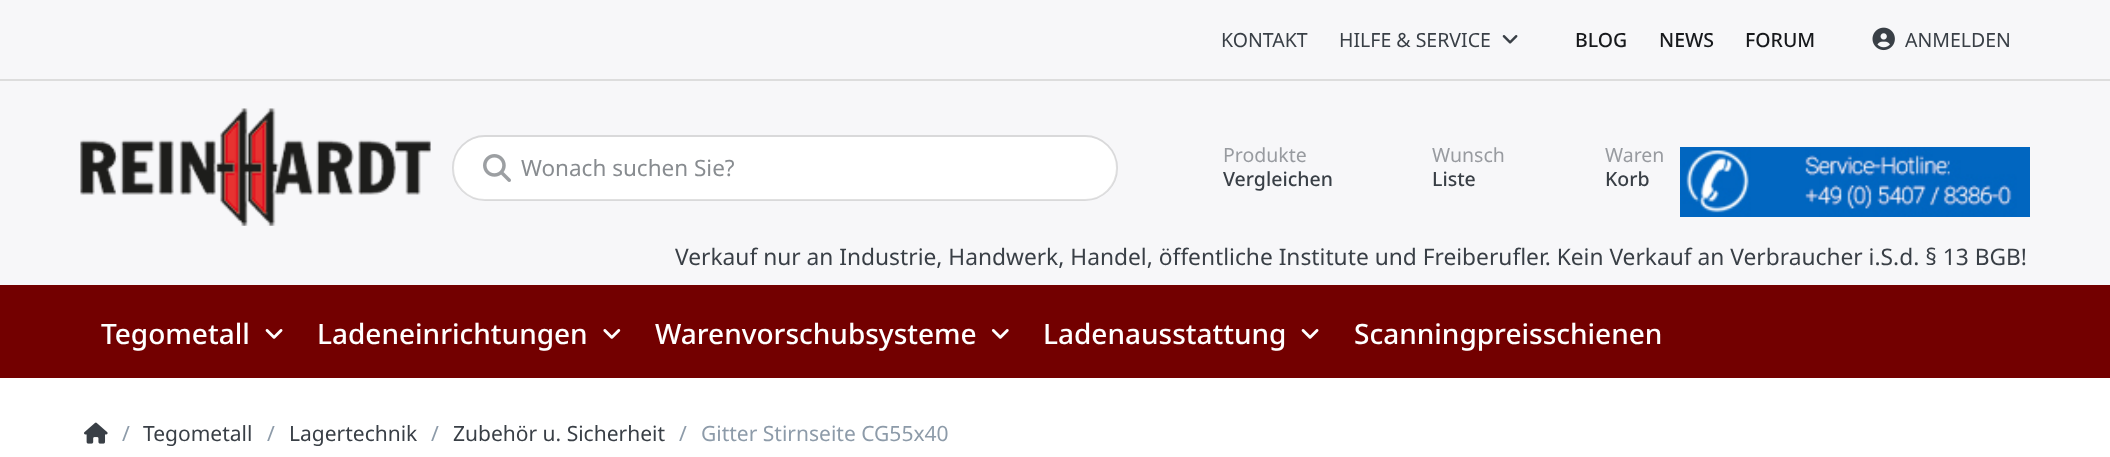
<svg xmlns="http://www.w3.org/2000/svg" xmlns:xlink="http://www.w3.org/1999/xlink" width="2110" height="457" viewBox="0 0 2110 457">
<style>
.cls-1{font:19.5px Noto Sans;fill:#393f46}
.cls-2{font:500 19.5px Noto Sans;fill:#17191c}
.cls-3{font:22.5px Noto Sans;fill:#888c90}
.cls-4{font:19.5px Noto Sans;fill:#989ba0}
.cls-5{font:500 19.5px Noto Sans;fill:#393f46}
.cls-6{font:22.75px Noto Sans;fill:#393f46}
.cls-7{font:500 28px Noto Sans;fill:#ffffff}
.cls-8{font:21px Noto Sans;fill:#8d9ba9}
.cls-9{font:21px Noto Sans;fill:#393f46}
</style>
<rect width="100%" height="100%" fill="#ffffff"/>
<rect fill="#f7f7f9" x="0" y="0" width="2110" height="79"/>
<rect fill="#dddddd" x="0" y="79" width="2110" height="2"/>
<image xlink:href="image0.png" x="1502" y="35" width="16" height="9"/>
<image xlink:href="image1.png" x="1872" y="27" width="23" height="24"/>
<rect fill="#f7f7f9" x="0" y="81" width="2110" height="204"/>
<image xlink:href="image2.png" x="80" y="108" width="351" height="118"/>
<rect fill="#ffffff" x="453" y="137" width="664" height="63" rx="31.5"/>
<rect fill="none" stroke="#000000" stroke-opacity="0.12" stroke-width="2" x="453" y="136" width="664" height="64" rx="32"/>
<image xlink:href="image3.png" x="483" y="154" width="28" height="28"/>
<image xlink:href="image4.png" x="1680" y="147" width="350" height="70"/>
<rect fill="#730000" x="0" y="285" width="2110" height="93"/>
<image xlink:href="image5.png" x="265" y="329" width="18" height="10"/>
<image xlink:href="image6.png" x="603" y="329" width="18" height="10"/>
<image xlink:href="image7.png" x="991" y="329" width="18" height="10"/>
<image xlink:href="image5.png" x="1301" y="329" width="18" height="10"/>
<image xlink:href="image8.png" x="84" y="422" width="24" height="22"/>
<text class="cls-1" x="1221" y="47">KONTAKT</text>
<text class="cls-1" x="1339" y="47">HILFE &amp; SERVICE</text>
<text class="cls-2" x="1575" y="47">BLOG</text>
<text class="cls-2" x="1659" y="47">NEWS</text>
<text class="cls-2" x="1745" y="47">FORUM</text>
<text class="cls-1" x="1905" y="47">ANMELDEN</text>
<text class="cls-3" x="521" y="176">Wonach suchen Sie?</text>
<text class="cls-4" x="1223" y="162">Produkte</text>
<text class="cls-5" x="1223" y="186">Vergleichen</text>
<text class="cls-4" x="1432" y="162">Wunsch</text>
<text class="cls-5" x="1432" y="186">Liste</text>
<text class="cls-4" x="1605" y="162">Waren</text>
<text class="cls-5" x="1605" y="186">Korb</text>
<text class="cls-6" x="675" y="265">Verkauf nur an Industrie, Handwerk, Handel, öffentliche Institute und Freiberufler. Kein Verkauf an Verbraucher i.S.d. § 13 BGB!</text>
<text class="cls-7" x="101" y="344">Tegometall</text>
<text class="cls-7" x="317" y="344">Ladeneinrichtungen</text>
<text class="cls-7" x="655" y="344">Warenvorschubsysteme</text>
<text class="cls-7" x="1043" y="344">Ladenausstattung</text>
<text class="cls-7" x="1354" y="344">Scanningpreisschienen</text>
<text class="cls-8" x="122" y="441">/</text>
<text class="cls-9" x="143" y="441">Tegometall</text>
<text class="cls-8" x="267" y="441">/</text>
<text class="cls-9" x="289" y="441">Lagertechnik</text>
<text class="cls-8" x="431" y="441">/</text>
<text class="cls-9" x="453" y="441">Zubehör u. Sicherheit</text>
<text class="cls-8" x="679" y="441">/</text>
<text class="cls-8" x="701" y="441">Gitter Stirnseite CG55x40</text>
</svg>
